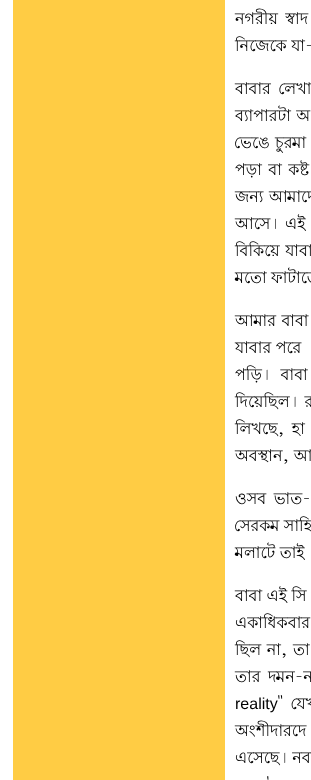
<svg xmlns="http://www.w3.org/2000/svg" xmlns:xlink="http://www.w3.org/1999/xlink" width="311" height="780" viewBox="0 0 311 780">
<style>
.cls-1{font:16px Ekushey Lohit;fill:#000000}
.cls-2{font:16px Liberation Sans;fill:#000000}
</style>
<rect width="100%" height="100%" fill="#ffffff"/>
<rect fill="#ffcc44" x="13" y="0" width="212" height="780"/>
<text class="cls-1"><tspan x="235" y="24" word-spacing="3">নগরীয় স্বাদ</tspan><tspan x="235" y="51">নিজেকে যা-</tspan></text>
<text class="cls-1"><tspan x="235" y="94" word-spacing="4">বাবার লেখা</tspan><tspan x="235" y="121" word-spacing="1">ব্যাপারটা অ</tspan><tspan x="235" y="148" word-spacing="1">ভেঙে চুরমা</tspan><tspan x="235" y="175" word-spacing="2">পড়া বা কষ্ট</tspan><tspan x="235" y="202" word-spacing="1">জন্য আমাদে</tspan><tspan x="235" y="229" word-spacing="2">আসে। এই</tspan><tspan x="235" y="256" word-spacing="1">বিকিয়ে যাবা</tspan><tspan x="235" y="283">মতো ফাটাতে</tspan></text>
<text class="cls-1"><tspan x="235" y="326" word-spacing="1">আমার বাবা</tspan><tspan x="235" y="353">যাবার পরে</tspan><tspan x="235" y="380" word-spacing="6">পড়ি। বাবা</tspan><tspan x="235" y="407" word-spacing="2">দিয়েছিল। র</tspan><tspan x="235" y="434" word-spacing="3">লিখছে, হা</tspan><tspan x="235" y="461">অবস্থান, আ</tspan></text>
<text class="cls-1"><tspan x="235" y="504" word-spacing="3">ওসব ভাত-</tspan><tspan x="235" y="531">সেরকম সাহি</tspan><tspan x="235" y="558">মলাটে তাই</tspan></text>
<text class="cls-1"><tspan x="235" y="601">বাবা এই সি</tspan><tspan x="235" y="628" word-spacing="1">একাধিকবার</tspan><tspan x="235" y="655" word-spacing="1">ছিল না, তা</tspan><tspan x="235" y="682" word-spacing="3">তার দমন-ন</tspan></text>
<text class="cls-2" x="235" y="709">reality</text>
<text class="cls-1" x="278" y="709" word-spacing="5">" যেখ</text>
<text class="cls-1"><tspan x="235" y="736">অংশীদারদে</tspan><tspan x="235" y="763">এসেছে। নবা</tspan></text>
<text class="cls-1" x="267" y="790">'</text>
</svg>
